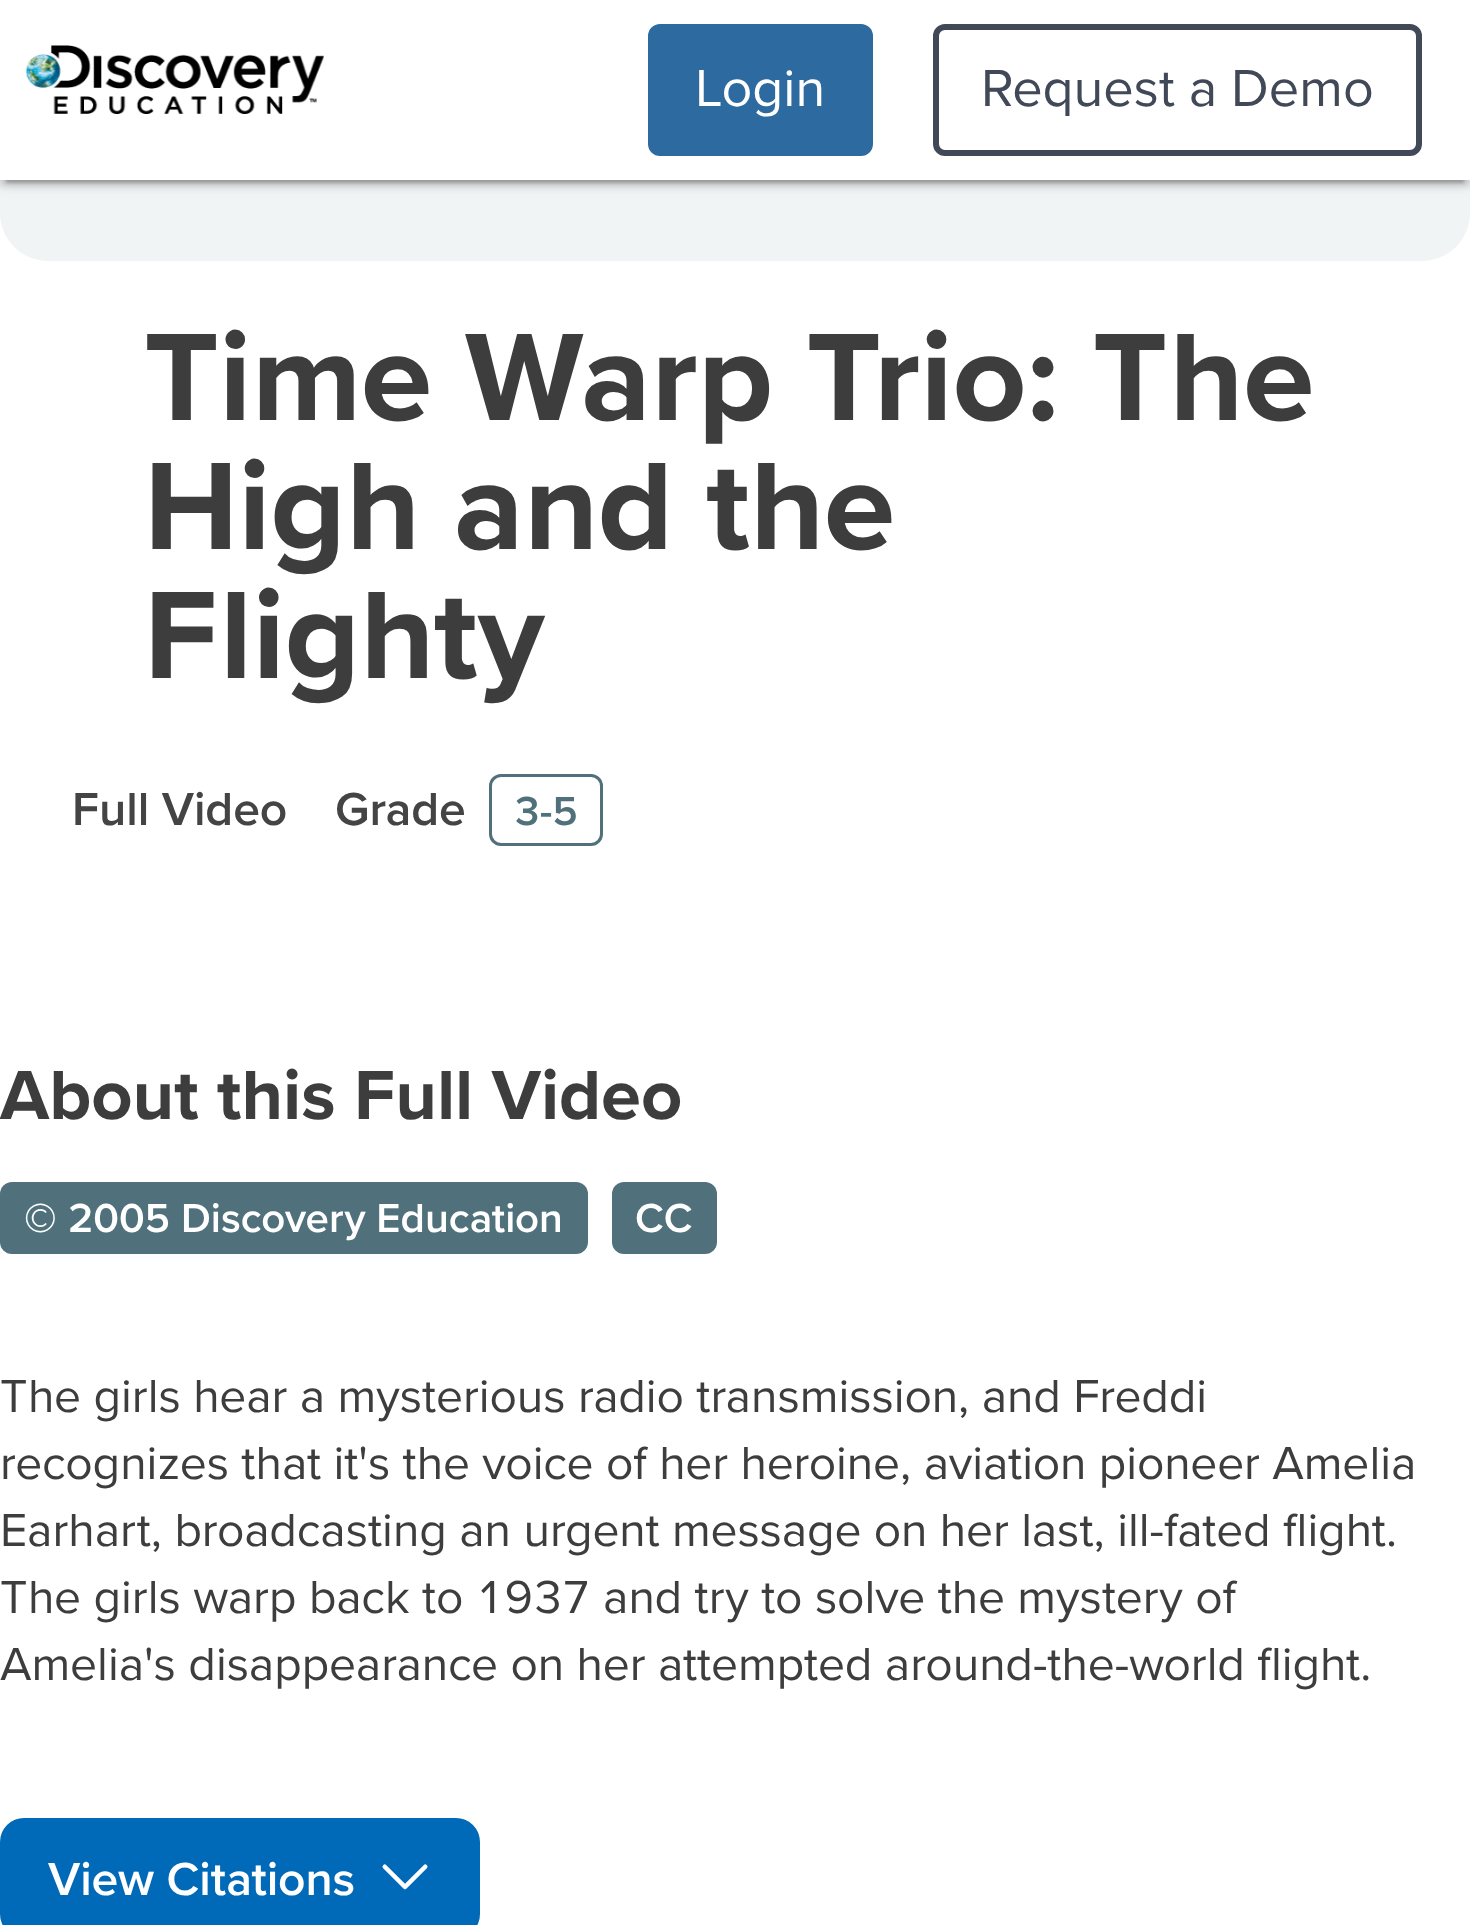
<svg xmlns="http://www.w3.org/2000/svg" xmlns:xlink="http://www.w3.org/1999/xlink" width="1470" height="1925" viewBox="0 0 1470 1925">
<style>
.cls-1{font:54px Proxima Nova;fill:#ffffff}
.cls-2{font:54px Proxima Nova;fill:#414858}
.cls-3{font:bold 129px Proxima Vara;fill:#3d3d3d}
.cls-4{font:600 48px Proxima Vara;fill:#444444}
.cls-5{font:600 42px Proxima Vara;fill:#50717c}
.cls-6{font:bold 72px Proxima Vara;fill:#3d3d3d}
.cls-7{font:600 42px Proxima Vara;fill:#ffffff}
.cls-8{font:48px Proxima Vara;fill:#3d3d3d}
.cls-9{font:600 48px Proxima Vara;fill:#ffffff}
</style>
<rect width="100%" height="100%" fill="#ffffff"/>
<rect fill="#f0f4f5" x="0" y="-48" width="1470" height="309" rx="48"/>
<rect fill="#000000" fill-opacity="0.2" filter="blur(1.5px)" x="6" y="15" width="1458" height="168"/>
<rect fill="#000000" fill-opacity="0.12" filter="blur(7.5px)" x="0" y="3" width="1470" height="180"/>
<rect fill="#000000" fill-opacity="0.14" filter="blur(3px)" x="0" y="6" width="1470" height="180"/>
<rect fill="#ffffff" x="0" y="0" width="1470" height="180"/>
<image xlink:href="image0.png" x="25" y="45" width="299" height="69"/>
<rect fill="#2d6a9f" x="648" y="24" width="225" height="132" rx="12"/>
<rect fill="none" stroke="#414858" stroke-width="6" x="936" y="27" width="483" height="126" rx="9"/>
<rect fill="none" stroke="#50717c" stroke-width="3" x="490.5" y="775.5" width="111" height="69" rx="10.5"/>
<rect fill="#50717c" x="0" y="1182" width="588" height="72" rx="12"/>
<rect fill="#50717c" x="612" y="1182" width="105" height="72" rx="12"/>
<rect fill="#0069b8" x="0" y="1818" width="480" height="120" rx="24"/>
<image xlink:href="image1.png" x="382" y="1864" width="46" height="26"/>
<text class="cls-1" x="695" y="106">Login</text>
<text class="cls-2" x="981" y="106">Request a Demo</text>
<text class="cls-3"><tspan x="144" y="420">Time Warp Trio: The</tspan><tspan x="144" y="549">High and the</tspan><tspan x="144" y="678">Flighty</tspan></text>
<text class="cls-4" x="72" y="825">Full Video</text>
<text class="cls-4" x="335" y="825">Grade</text>
<text class="cls-5" x="514" y="825">3-5</text>
<text class="cls-6" x="0" y="1119">About this Full Video</text>
<text class="cls-7" x="24" y="1232">© 2005 Discovery Education</text>
<text class="cls-7" x="635" y="1232">CC</text>
<text class="cls-8"><tspan x="0" y="1412">The girls hear a mysterious radio transmission, and Freddi</tspan><tspan x="0" y="1479">recognizes that it's the voice of her heroine, aviation pioneer Amelia</tspan><tspan x="0" y="1546">Earhart, broadcasting an urgent message on her last, ill-fated flight.</tspan><tspan x="0" y="1613">The girls warp back to 1937 and try to solve the mystery of</tspan><tspan x="0" y="1680">Amelia's disappearance on her attempted around-the-world flight.</tspan></text>
<text class="cls-9" x="48" y="1895">View Citations</text>
</svg>
